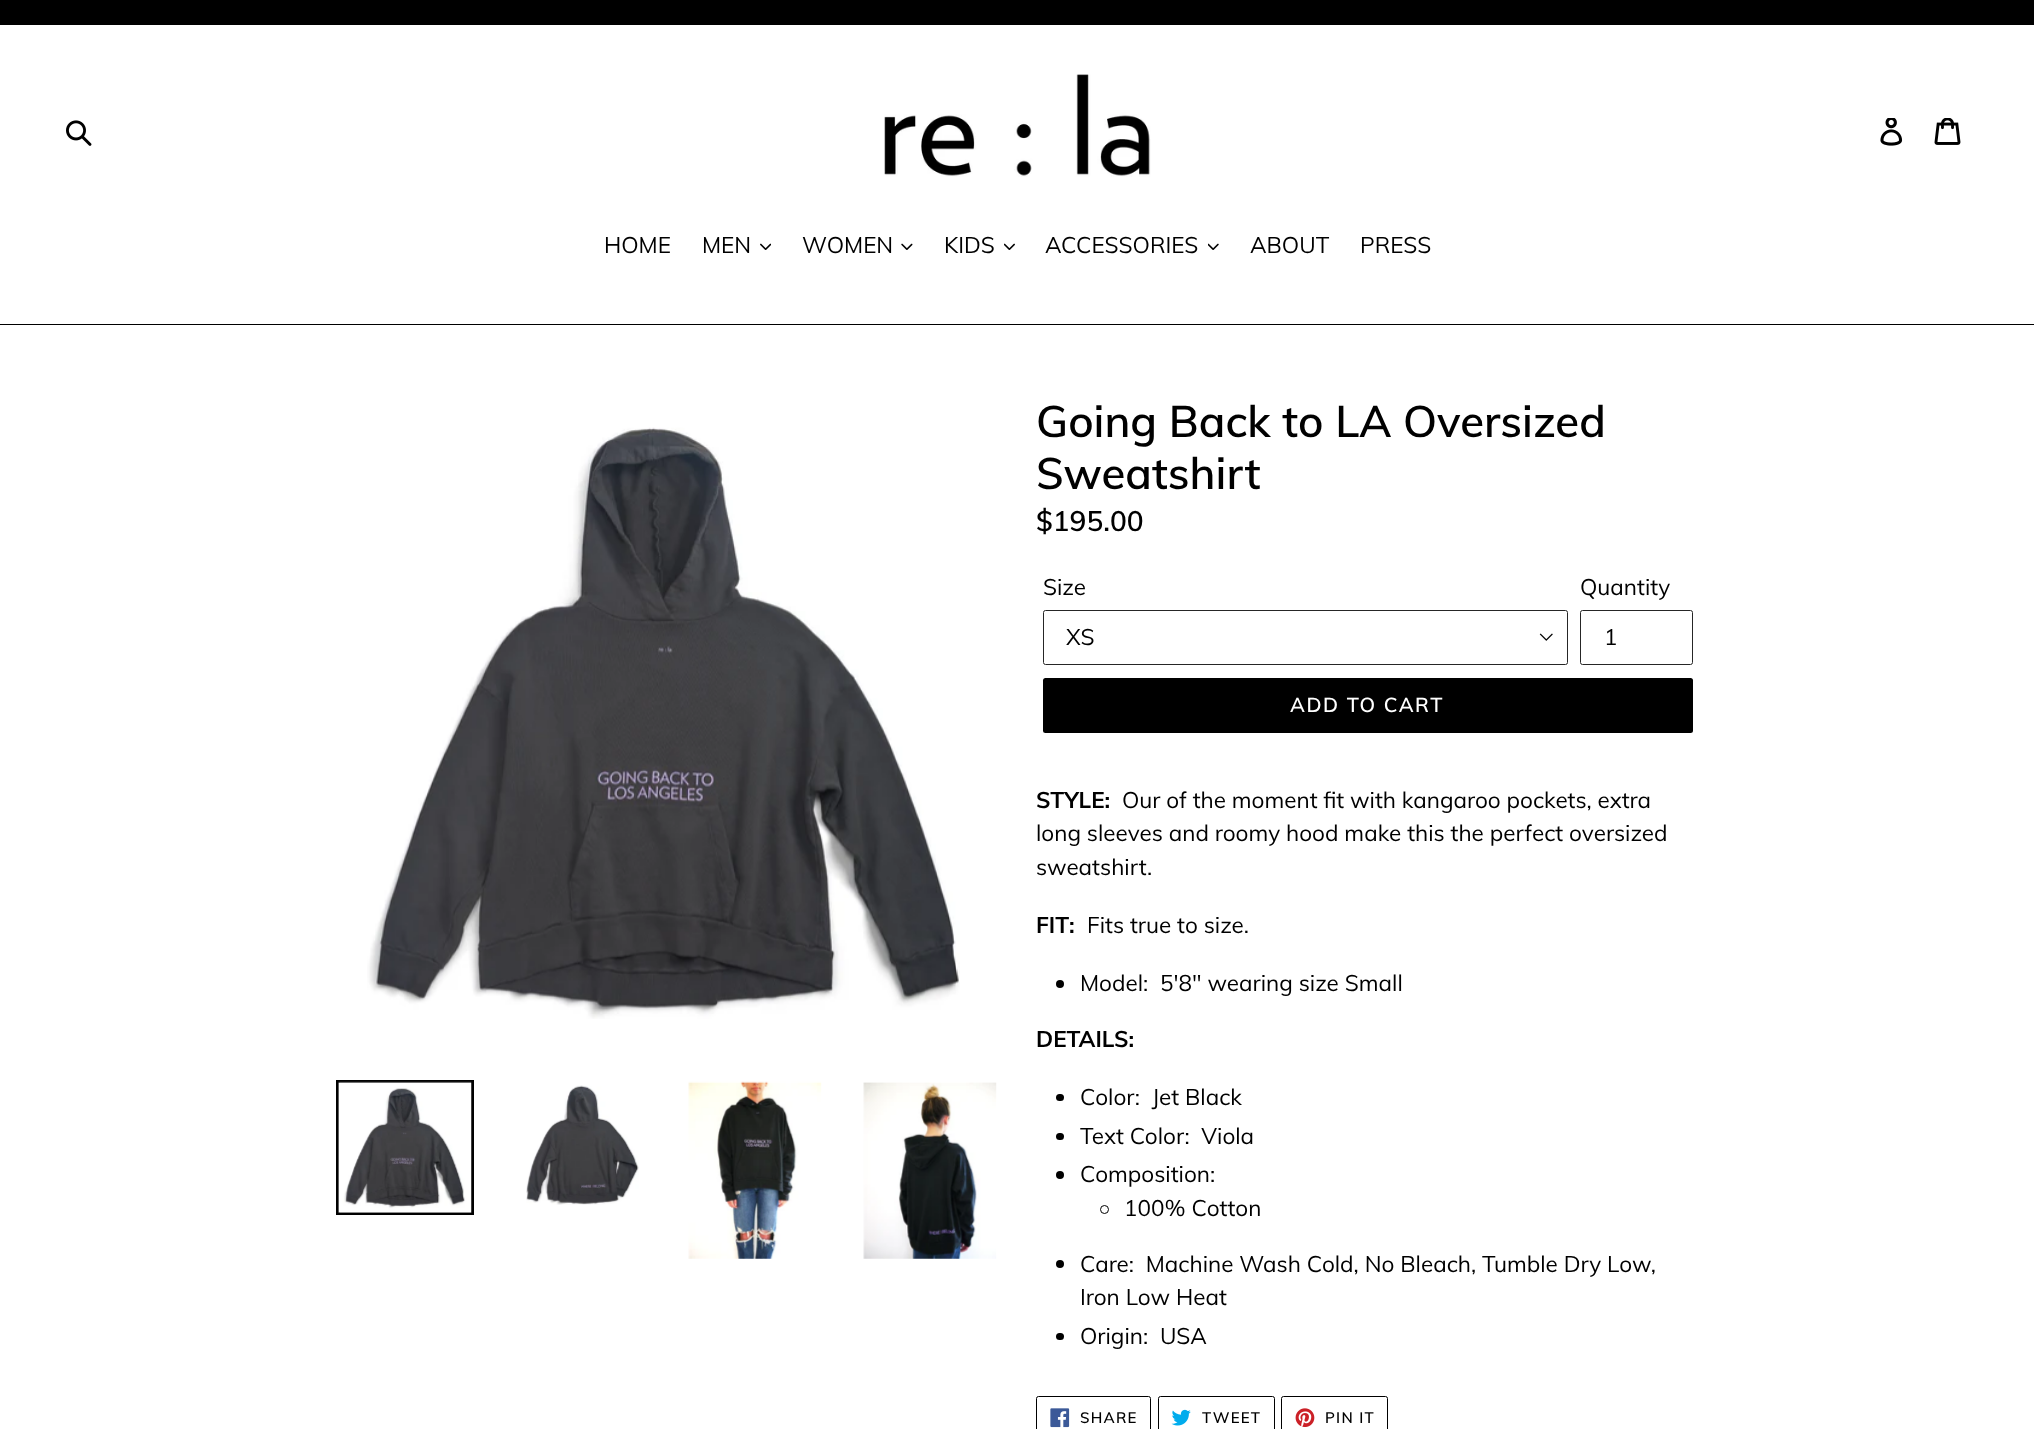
<svg xmlns="http://www.w3.org/2000/svg" xmlns:xlink="http://www.w3.org/1999/xlink" width="2034" height="1429" viewBox="0 0 2034 1429">
<style>
.cls-1{font:22.5px Muli;fill:#000000}
.cls-2{font:600 43.75px Muli;fill:#000000}
.cls-3{font:600 28px Muli;fill:#000000}
.cls-4{font:600 20px Muli;letter-spacing:1.6px;fill:#ffffff}
.cls-5{font:bold 22.5px Muli;fill:#000000}
.cls-6{font:600 15px Muli;letter-spacing:1.25px;fill:#000000}
</style>
<rect width="100%" height="100%" fill="#ffffff"/>
<rect fill="#000000" x="0" y="0" width="2034" height="25"/>
<image xlink:href="image0.png" x="66" y="120" width="26" height="26"/>
<image xlink:href="image1.png" x="884" y="74" width="267" height="103"/>
<image xlink:href="image2.png" x="1880" y="118" width="23" height="28"/>
<image xlink:href="image3.png" x="1934" y="118" width="27" height="27"/>
<rect fill="#000000" x="0" y="324" width="2034" height="1"/>
<image xlink:href="image4.png" x="760" y="243" width="11" height="7"/>
<image xlink:href="image5.png" x="901" y="243" width="12" height="7"/>
<image xlink:href="image6.png" x="1004" y="243" width="11" height="7"/>
<image xlink:href="image7.png" x="1208" y="243" width="11" height="7"/>
<image xlink:href="image8.png" x="367" y="427" width="593" height="592"/>
<rect fill="none" stroke="#000000" stroke-width="3" x="337.5" y="1081.5" width="135" height="132"/>
<image xlink:href="image9.png" x="338" y="1081" width="134" height="132"/>
<image xlink:href="image10.png" x="526" y="1085" width="113" height="120"/>
<image xlink:href="image11.png" x="688" y="1081" width="134" height="178"/>
<image xlink:href="image12.png" x="863" y="1082" width="134" height="177"/>
<image xlink:href="image13.png" x="1539" y="633" width="14" height="8"/>
<rect fill="none" stroke="#262626" x="1043.5" y="610.5" width="524" height="54" rx="2"/>
<rect fill="none" stroke="#262626" x="1580.5" y="610.5" width="112" height="54" rx="2"/>
<rect fill="#000000" x="1043" y="678" width="650" height="55" rx="2.5"/>
<circle fill="#000000" cx="1060" cy="984" r="4"/>
<rect fill="#000000" x="1056" y="1094" width="8" height="7" rx="3.5"/>
<rect fill="#000000" x="1056" y="1133" width="8" height="7" rx="3.5"/>
<circle fill="#000000" cx="1060" cy="1175" r="4"/>
<circle fill="none" stroke="#000000" cx="1104.5" cy="1209.5" r="4"/>
<circle fill="#000000" cx="1060" cy="1264" r="4"/>
<rect fill="#000000" x="1056" y="1333" width="8" height="7" rx="3.5"/>
<rect fill="none" stroke="#000000" x="1036.5" y="1396.5" width="114" height="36" rx="2"/>
<image xlink:href="image14.png" x="1050" y="1408" width="20" height="20"/>
<rect fill="none" stroke="#000000" x="1158.5" y="1396.5" width="116" height="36" rx="2"/>
<image xlink:href="image15.png" x="1171" y="1409" width="20" height="17"/>
<rect fill="none" stroke="#000000" x="1281.5" y="1396.5" width="106" height="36" rx="2"/>
<image xlink:href="image16.png" x="1295" y="1408" width="20" height="19"/>
<text class="cls-1" x="604" y="253">HOME</text>
<text class="cls-1" x="702" y="253">MEN</text>
<text class="cls-1" x="802" y="253">WOMEN</text>
<text class="cls-1" x="944" y="253">KIDS</text>
<text class="cls-1" x="1045" y="253">ACCESSORIES</text>
<text class="cls-1" x="1250" y="253">ABOUT</text>
<text class="cls-1" x="1360" y="253">PRESS</text>
<text class="cls-2"><tspan x="1036" y="437">Going Back to LA Oversized</tspan><tspan x="1036" y="489">Sweatshirt</tspan></text>
<text class="cls-3" x="1036" y="531">$195.00</text>
<text class="cls-1" x="1043" y="595">Size</text>
<text class="cls-1" x="1066" y="645">XS</text>
<text class="cls-1" x="1580" y="595">Quantity</text>
<text class="cls-1" x="1604" y="645">1</text>
<text class="cls-4" x="1290" y="712">ADD TO CART</text>
<text class="cls-5" x="1036" y="808">STYLE:</text>
<text class="cls-1" x="1122" y="808">Our of the moment fit with kangaroo pockets, extra</text>
<text class="cls-1"><tspan x="1036" y="841">long sleeves and roomy hood make this the perfect oversized</tspan><tspan x="1036" y="875">sweatshirt.</tspan></text>
<text class="cls-5" x="1036" y="933">FIT:</text>
<text class="cls-1" x="1087" y="933">Fits true to size.</text>
<text class="cls-1" xml:space="preserve" x="1080" y="991">Model:  5'8" wearing size Small</text>
<text class="cls-5" x="1036" y="1047">DETAILS:</text>
<text class="cls-1" xml:space="preserve"><tspan x="1080" y="1105">Color:  Jet Black</tspan><tspan x="1080" y="1144">Text Color:  Viola</tspan><tspan x="1080" y="1182">Composition:</tspan></text>
<text class="cls-1" x="1124" y="1216">100% Cotton</text>
<text class="cls-1" xml:space="preserve"><tspan x="1080" y="1272">Care:  Machine Wash Cold, No Bleach, Tumble Dry Low,</tspan><tspan x="1080" y="1305">Iron Low Heat</tspan><tspan x="1080" y="1344">Origin:  USA</tspan></text>
<text class="cls-6" x="1080" y="1423">SHARE</text>
<text class="cls-6" x="1202" y="1423">TWEET</text>
<text class="cls-6" x="1325" y="1423">PIN IT</text>
</svg>
